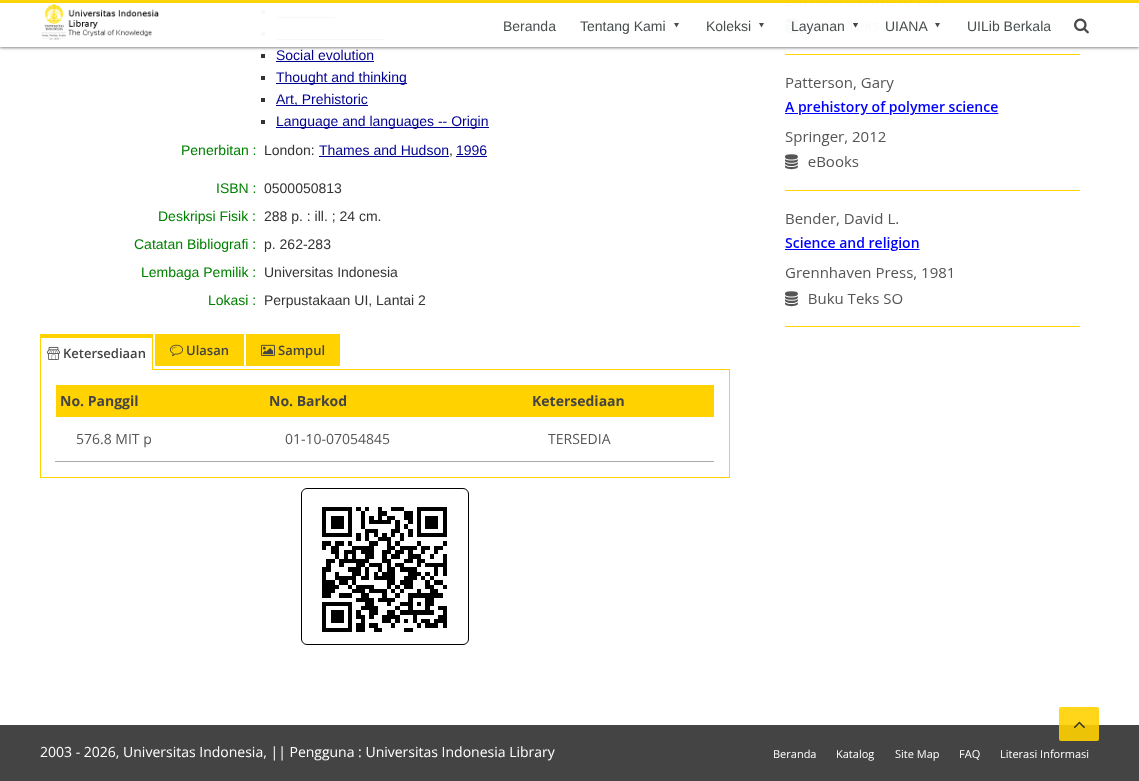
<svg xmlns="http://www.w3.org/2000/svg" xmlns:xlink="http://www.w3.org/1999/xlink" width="1139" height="781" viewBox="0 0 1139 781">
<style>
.cls-1{font:14px Liberation Sans;fill:#474d4d}
.cls-2{font:14px Liberation Sans;fill:#000090}
.cls-3{font:14px Liberation Sans;fill:#008000}
.cls-4{font:14px Liberation Sans;fill:#333333}
.cls-5{font:600 13px Open Sans;fill:#444444}
.cls-6{font:bold 14px Open Sans;fill:#444444}
.cls-7{font:14px Open Sans;fill:#555555}
.cls-8{font:14px Open Sans;fill:#ffffff}
.cls-9{font:11px Open Sans;fill:#ffffff}
</style>
<defs>
<clipPath id="clip1"><rect x="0" y="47" width="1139" height="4"/></clipPath>
</defs>
<rect width="100%" height="100%" fill="#ffffff"/>
<rect fill="#333333" x="261" y="10" width="4" height="4"/>
<rect fill="#000090" x="276" y="17" width="59" height="1"/>
<rect fill="#333333" x="261" y="32" width="4" height="4"/>
<rect fill="#000090" x="276" y="39" width="108" height="1"/>
<image xlink:href="image6.png" x="785" y="0" width="295" height="327"/>
<g clip-path="url(#clip1)">
<rect fill="#000000" fill-opacity="0.48" filter="blur(1.5px)" x="0" y="1" width="1139" height="47"/>
</g>
<rect fill="#ffffff" fill-opacity="0.97" x="261" y="0" width="686" height="40"/>
<rect fill="#ffd200" fill-opacity="0.97" x="0" y="0" width="1139" height="3"/>
<image xlink:href="image0.png" x="41" y="4" width="118" height="36"/>
<path fill="#474d4d" d="M679 23L676.5 27.5L674 23Z"/>
<path fill="#474d4d" d="M764 23L761.5 27.5L759 23Z"/>
<path fill="#474d4d" d="M858 23L855.5 27.5L853 23Z"/>
<path fill="#414747" fill-opacity="0.97" d="M858 23L855.5 27.5L853 23Z"/>
<path fill="#474d4d" d="M940 23L937.5 27.5L935 23Z"/>
<image xlink:href="image1.png" x="1074" y="18" width="15" height="16"/>
<rect fill="#333333" x="261" y="54" width="4" height="4"/>
<rect fill="#000090" x="276" y="61" width="98" height="1"/>
<rect fill="#333333" x="261" y="76" width="4" height="4"/>
<rect fill="#000090" x="276" y="83" width="131" height="1"/>
<rect fill="#333333" x="261" y="98" width="4" height="4"/>
<rect fill="#000090" x="276" y="105" width="92" height="1"/>
<rect fill="#333333" x="261" y="120" width="4" height="4"/>
<rect fill="#000090" x="276" y="127" width="213" height="1"/>
<rect fill="#000090" x="319" y="156" width="130" height="1"/>
<rect fill="#000090" x="456" y="156" width="31" height="1"/>
<rect fill="none" stroke="#ffd200" x="40.5" y="369.5" width="689" height="108"/>
<rect fill="#ffffff" x="41" y="369" width="111" height="1"/>
<rect fill="#ffd200" x="40" y="334" width="113" height="4"/>
<rect fill="#ffd200" x="152" y="334" width="1" height="36"/>
<rect fill="#ffd200" x="40" y="334" width="1" height="36"/>
<image xlink:href="image2.png" x="47" y="346" width="13" height="14"/>
<rect fill="#ffd200" x="155" y="334" width="89" height="32"/>
<image xlink:href="image3.png" x="170" y="344" width="13" height="13"/>
<rect fill="#ffd200" x="246" y="334" width="94" height="32"/>
<image xlink:href="image4.png" x="261" y="344" width="14" height="12"/>
<rect fill="#ffd200" x="56" y="385" width="658" height="32"/>
<rect fill="#aaaaaa" x="55" y="461" width="659" height="1"/>
<rect fill="none" stroke="#000000" x="301.5" y="488.5" width="167" height="156" rx="5.5"/>
<image xlink:href="image5.png" x="322" y="507" width="125" height="125"/>
<rect fill="#444444" x="0" y="725" width="1139" height="56"/>
<rect fill="#ffd200" fill-opacity="0.9" x="1059" y="707" width="40" height="34" rx="2"/>
<image xlink:href="image7.png" x="1073" y="721" width="12" height="8"/>
<text class="cls-1" x="503" y="31">Beranda</text>
<text class="cls-1" x="580" y="31">Tentang Kami</text>
<text class="cls-1" x="706" y="31">Koleksi</text>
<text class="cls-1" x="791" y="31">Layanan</text>
<text class="cls-1" x="885" y="31">UIANA</text>
<text class="cls-1" x="967" y="31">UILib Berkala</text>
<text class="cls-2"><tspan x="276" y="60">Social evolution</tspan><tspan x="276" y="82">Thought and thinking</tspan><tspan x="276" y="104">Art, Prehistoric</tspan><tspan x="276" y="126">Language and languages -- Origin</tspan></text>
<text class="cls-3" x="181" y="155">Penerbitan :</text>
<text class="cls-4" x="264" y="155">London:</text>
<text class="cls-2" x="319" y="155">Thames and Hudson</text>
<text class="cls-4" x="449" y="155">,</text>
<text class="cls-2" x="456" y="155">1996</text>
<text class="cls-3" x="216" y="193">ISBN :</text>
<text class="cls-4" x="264" y="193">0500050813</text>
<text class="cls-3" x="158" y="221">Deskripsi Fisik :</text>
<text class="cls-4" x="264" y="221">288 p. : ill. ; 24 cm.</text>
<text class="cls-3" x="134" y="249">Catatan Bibliografi :</text>
<text class="cls-4" x="264" y="249">p. 262-283</text>
<text class="cls-3" x="141" y="277">Lembaga Pemilik :</text>
<text class="cls-4" x="264" y="277">Universitas Indonesia</text>
<text class="cls-3" x="208" y="305">Lokasi :</text>
<text class="cls-4" x="264" y="305">Perpustakaan UI, Lantai 2</text>
<text class="cls-5" x="63" y="358">Ketersediaan</text>
<text class="cls-5" x="186" y="355">Ulasan</text>
<text class="cls-5" x="278" y="355">Sampul</text>
<text class="cls-6" x="60" y="406">No. Panggil</text>
<text class="cls-6" x="269" y="406">No. Barkod</text>
<text class="cls-6" x="532" y="406">Ketersediaan</text>
<text class="cls-7" x="76" y="444">576.8 MIT p</text>
<text class="cls-7" x="285" y="444">01-10-07054845</text>
<text class="cls-7" x="548" y="444">TERSEDIA</text>
<text class="cls-8" x="40" y="757">2003 - 2026, Universitas Indonesia, || Pengguna : Universitas Indonesia Library</text>
<text class="cls-9" x="773" y="758">Beranda</text>
<text class="cls-9" x="836" y="758">Katalog</text>
<text class="cls-9" x="895" y="758">Site Map</text>
<text class="cls-9" x="959" y="758">FAQ</text>
<text class="cls-9" x="1000" y="758">Literasi Informasi</text>
</svg>
